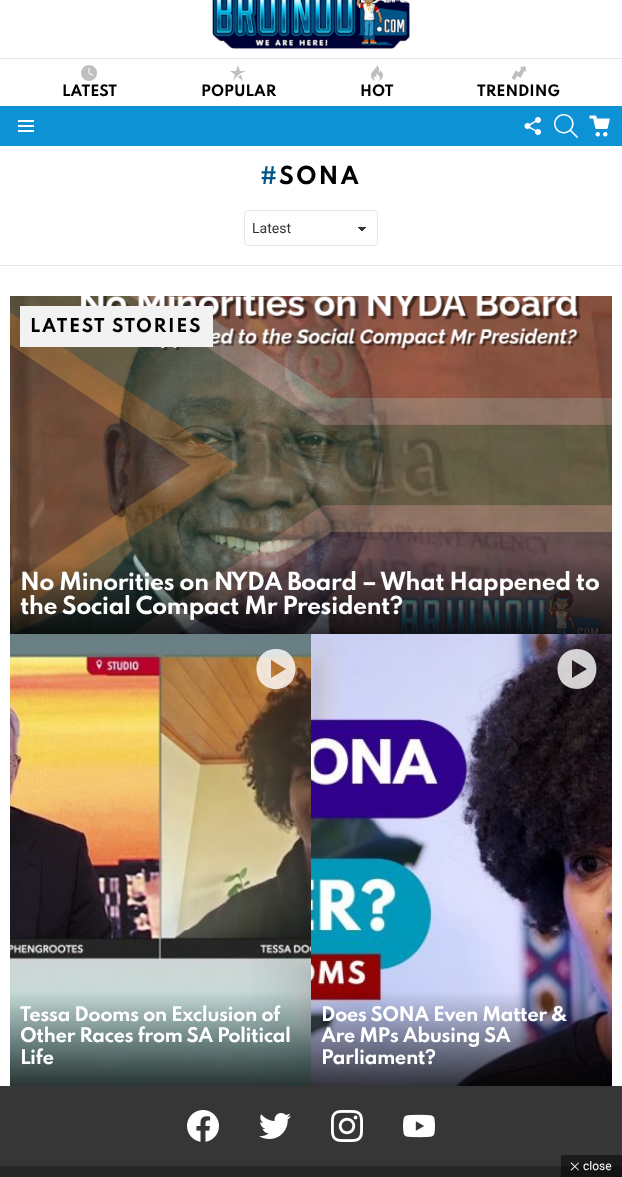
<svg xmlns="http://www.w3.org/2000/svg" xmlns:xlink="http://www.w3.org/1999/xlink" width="622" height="1177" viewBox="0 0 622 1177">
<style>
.cls-1{font:bold 14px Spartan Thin;fill:#000000}
.cls-2{font:bold 22px Spartan Thin;letter-spacing:2px;fill:#015488}
.cls-3{font:bold 22px Spartan Thin;letter-spacing:2px;fill:#000000}
.cls-4{font:14px Roboto;fill:#333333}
.cls-5{font:bold 17px Spartan Thin;letter-spacing:1.6px;fill:#000000}
.cls-6{font:bold 22px Spartan Thin;letter-spacing:-0.65px;fill:#ffffff}
.cls-7{font:bold 18px Spartan Thin;letter-spacing:-0.55px;fill:#ffffff}
.cls-8{font:12px Roboto;fill:#ffffff}
</style>
<defs>
<linearGradient id="g1" gradientUnits="userSpaceOnUse" x1="362" y1="227" x2="367" y2="231"><stop offset="0.5" stop-color="#333333"/><stop offset="0.5" stop-color="#ffffff"/></linearGradient>
<linearGradient id="g2" gradientUnits="userSpaceOnUse" x1="357" y1="231" x2="362" y2="227"><stop offset="0.5" stop-color="#ffffff"/><stop offset="0.5" stop-color="#333333"/></linearGradient>
</defs>
<rect width="100%" height="100%" fill="#ffffff"/>
<image xlink:href="image0.png" x="212" y="0" width="198" height="49"/>
<rect fill="#e6e6e6" x="0" y="58" width="622" height="1"/>
<image xlink:href="image1.png" x="81" y="65" width="16" height="16"/>
<image xlink:href="image2.png" x="230" y="65" width="16" height="16"/>
<image xlink:href="image3.png" x="371" y="65" width="12" height="16"/>
<image xlink:href="image4.png" x="511" y="66" width="16" height="14"/>
<rect fill="#0d92d5" x="0" y="106" width="622" height="40"/>
<image xlink:href="image5.png" x="18" y="120" width="16" height="12"/>
<image xlink:href="image6.png" x="524" y="117" width="17" height="18"/>
<image xlink:href="image7.png" x="554" y="114" width="24" height="24"/>
<image xlink:href="image8.png" x="589" y="115" width="21" height="22"/>
<rect fill="url(#g1)" x="362" y="227" width="5" height="4"/>
<rect fill="url(#g2)" x="357" y="227" width="5" height="4"/>
<rect fill="none" stroke="#e6e6e6" x="244.5" y="210.5" width="133" height="35" rx="3.5"/>
<rect fill="#e6e6e6" x="0" y="265" width="622" height="1"/>
<image xlink:href="image9.png" x="10" y="296" width="602" height="338"/>
<rect fill="#f2f2f2" x="20" y="306" width="193" height="41"/>
<image xlink:href="image10.png" x="10" y="634" width="301" height="452"/>
<path fill="#ffffff" fill-opacity="0.8" d="M276 649C250 649 250 689 276 689C302 689 302 649 276 649ZM271 678V660L286 669Z"/>
<image xlink:href="image11.png" x="311" y="634" width="301" height="452"/>
<path fill="#ffffff" fill-opacity="0.8" d="M577 649C551 649 551 689 577 689C603 689 603 649 577 649ZM572 678V660L587 669Z"/>
<rect fill="#363636" x="0" y="1086" width="622" height="80"/>
<rect fill="#1b1b1b" x="561" y="1155" width="61" height="11"/>
<image xlink:href="image12.png" x="187" y="1110" width="32" height="32"/>
<image xlink:href="image13.png" x="259" y="1113" width="32" height="26"/>
<image xlink:href="image14.png" x="331" y="1110" width="32" height="32"/>
<image xlink:href="image15.png" x="403" y="1114" width="32" height="24"/>
<rect fill="#262626" x="0" y="1166" width="561" height="11"/>
<rect fill="#131313" x="561" y="1166" width="61" height="11"/>
<path fill="#ffffff" d="M571.5 1162.5L579 1170L578.5 1170.5L570.5 1163Z"/>
<path fill="#ffffff" d="M578.5 1162.5L579 1163L571.5 1170.5L570.5 1170Z"/>
<text class="cls-1" x="62" y="96">LATEST</text>
<text class="cls-1" x="201" y="96">POPULAR</text>
<text class="cls-1" x="360" y="96">HOT</text>
<text class="cls-1" x="477" y="96">TRENDING</text>
<text class="cls-2" x="260" y="184">#</text>
<text class="cls-3" x="279" y="184">SONA</text>
<text class="cls-4" x="252" y="233">Latest</text>
<text class="cls-5" x="30" y="332">LATEST STORIES</text>
<text class="cls-6"><tspan x="20" y="590">No Minorities on NYDA Board – What Happened to</tspan><tspan x="20" y="614">the Social Compact Mr President?</tspan></text>
<text class="cls-7"><tspan x="20" y="1021">Tessa Dooms on Exclusion of</tspan><tspan x="20" y="1042">Other Races from SA Political</tspan><tspan x="20" y="1064">Life</tspan></text>
<text class="cls-7"><tspan x="321" y="1021">Does SONA Even Matter &amp;</tspan><tspan x="321" y="1042">Are MPs Abusing SA</tspan><tspan x="321" y="1064">Parliament?</tspan></text>
<text class="cls-8" x="583" y="1170">close</text>
</svg>
